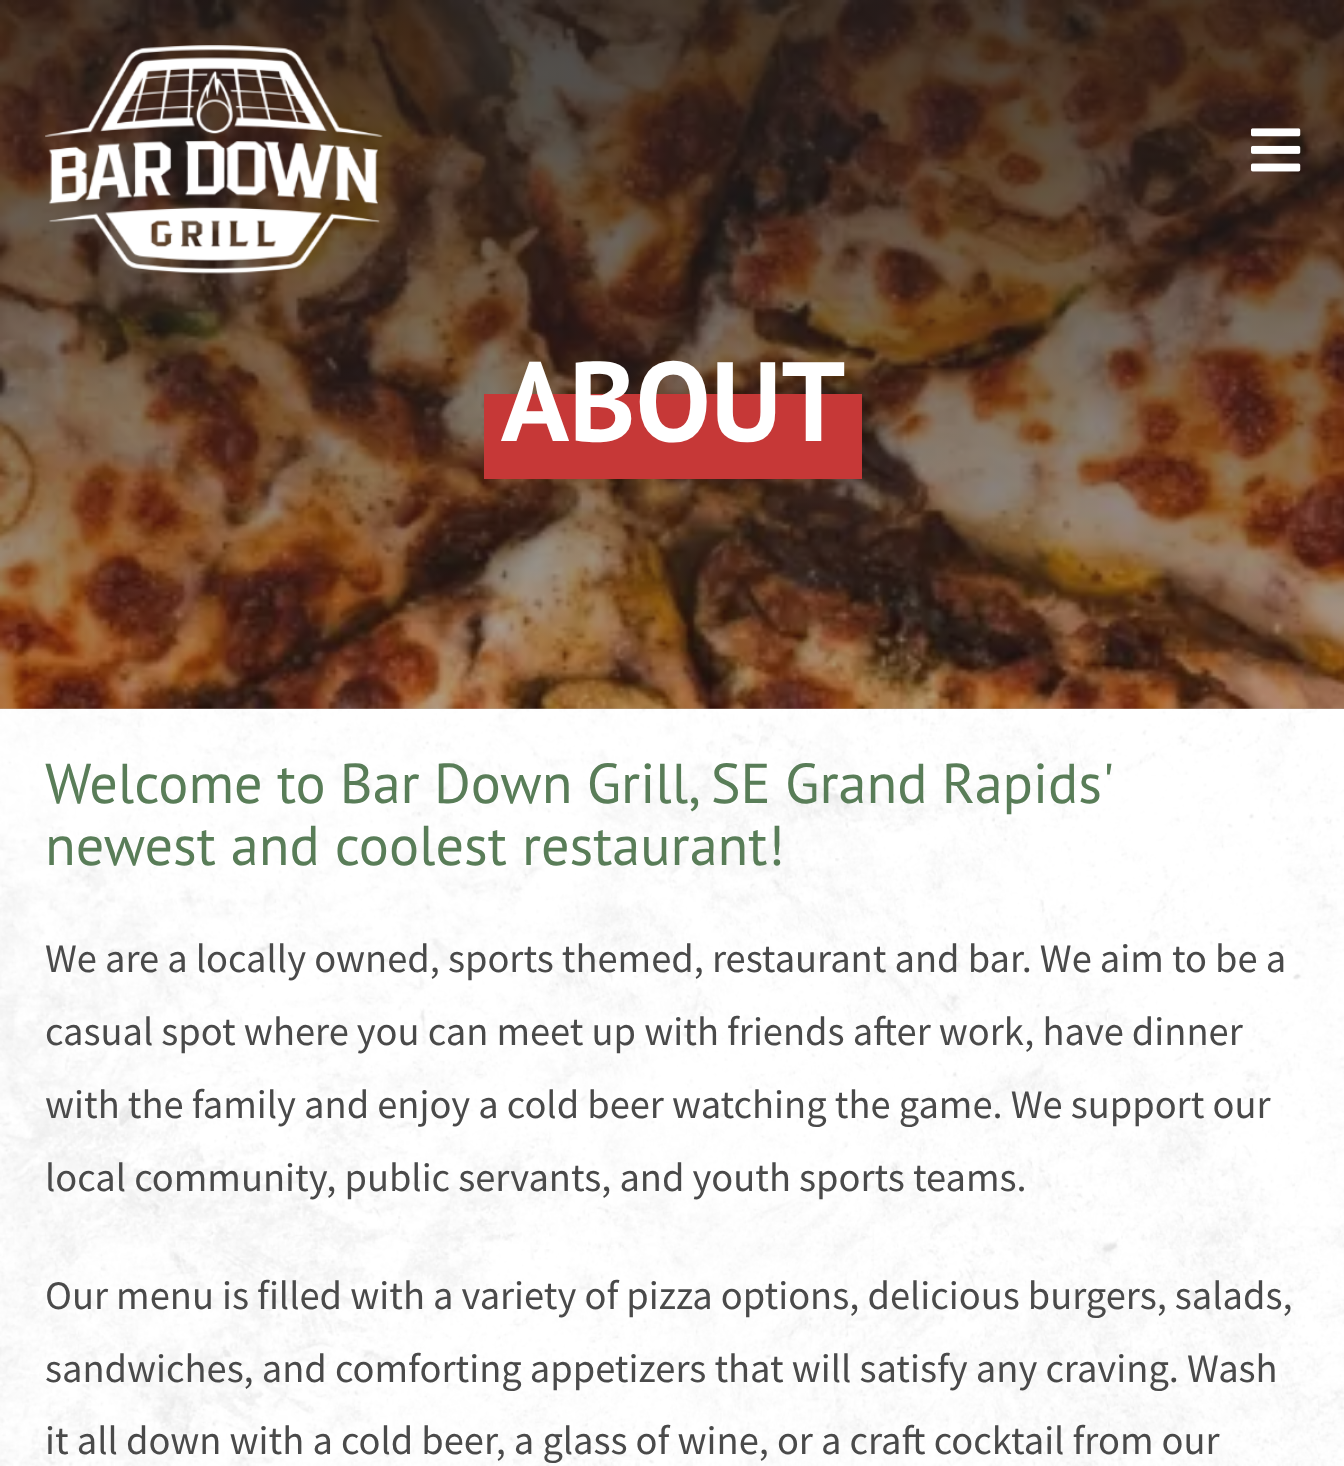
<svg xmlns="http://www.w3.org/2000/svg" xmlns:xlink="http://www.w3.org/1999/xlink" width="1344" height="1466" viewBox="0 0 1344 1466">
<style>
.cls-1{font:bold 112.5px PT Sans;fill:#ffffff}
.cls-2{font:56.25px PT Sans;fill:#597d58}
.cls-3{font:40.5px Source Sans Pro;fill:#4a4a4a}
</style>
<defs>
<linearGradient id="g1" gradientUnits="userSpaceOnUse" x1="673" y1="0" x2="673" y2="709"><stop offset="0" stop-color="#1a1a1a" stop-opacity="0.8"/><stop offset="1" stop-color="#1a1a1a" stop-opacity="0.34"/></linearGradient>
</defs>
<rect width="100%" height="100%" fill="#ffffff"/>
<image xlink:href="image2.png" x="0" y="0" width="1344" height="709"/>
<rect fill="url(#g1)" x="0" y="0" width="1344" height="709"/>
<image xlink:href="image0.png" x="45" y="45" width="338" height="229"/>
<image xlink:href="image1.png" x="1251" y="128" width="50" height="44"/>
<rect fill="#c63837" x="484" y="394" width="378" height="85"/>
<image xlink:href="image3.png" x="0" y="708" width="1344" height="758"/>
<text class="cls-1" x="501" y="441">ABOUT</text>
<text class="cls-2"><tspan x="45" y="803" word-spacing="-0.75">Welcome to Bar Down Grill, SE Grand Rapids'</tspan><tspan x="45" y="865">newest and coolest restaurant!</tspan></text>
<text class="cls-3"><tspan x="45" y="972">We are a locally owned, sports themed, restaurant and bar. We aim to be a</tspan><tspan x="45" y="1045">casual spot where you can meet up with friends after work, have dinner</tspan><tspan x="45" y="1118">with the family and enjoy a cold beer watching the game. We support our</tspan><tspan x="45" y="1191">local community, public servants, and youth sports teams.</tspan></text>
<text class="cls-3"><tspan x="45" y="1309">Our menu is filled with a variety of pizza options, delicious burgers, salads,</tspan><tspan x="45" y="1382">sandwiches, and comforting appetizers that will satisfy any craving. Wash</tspan><tspan x="45" y="1454">it all down with a cold beer, a glass of wine, or a craft cocktail from our</tspan></text>
</svg>
